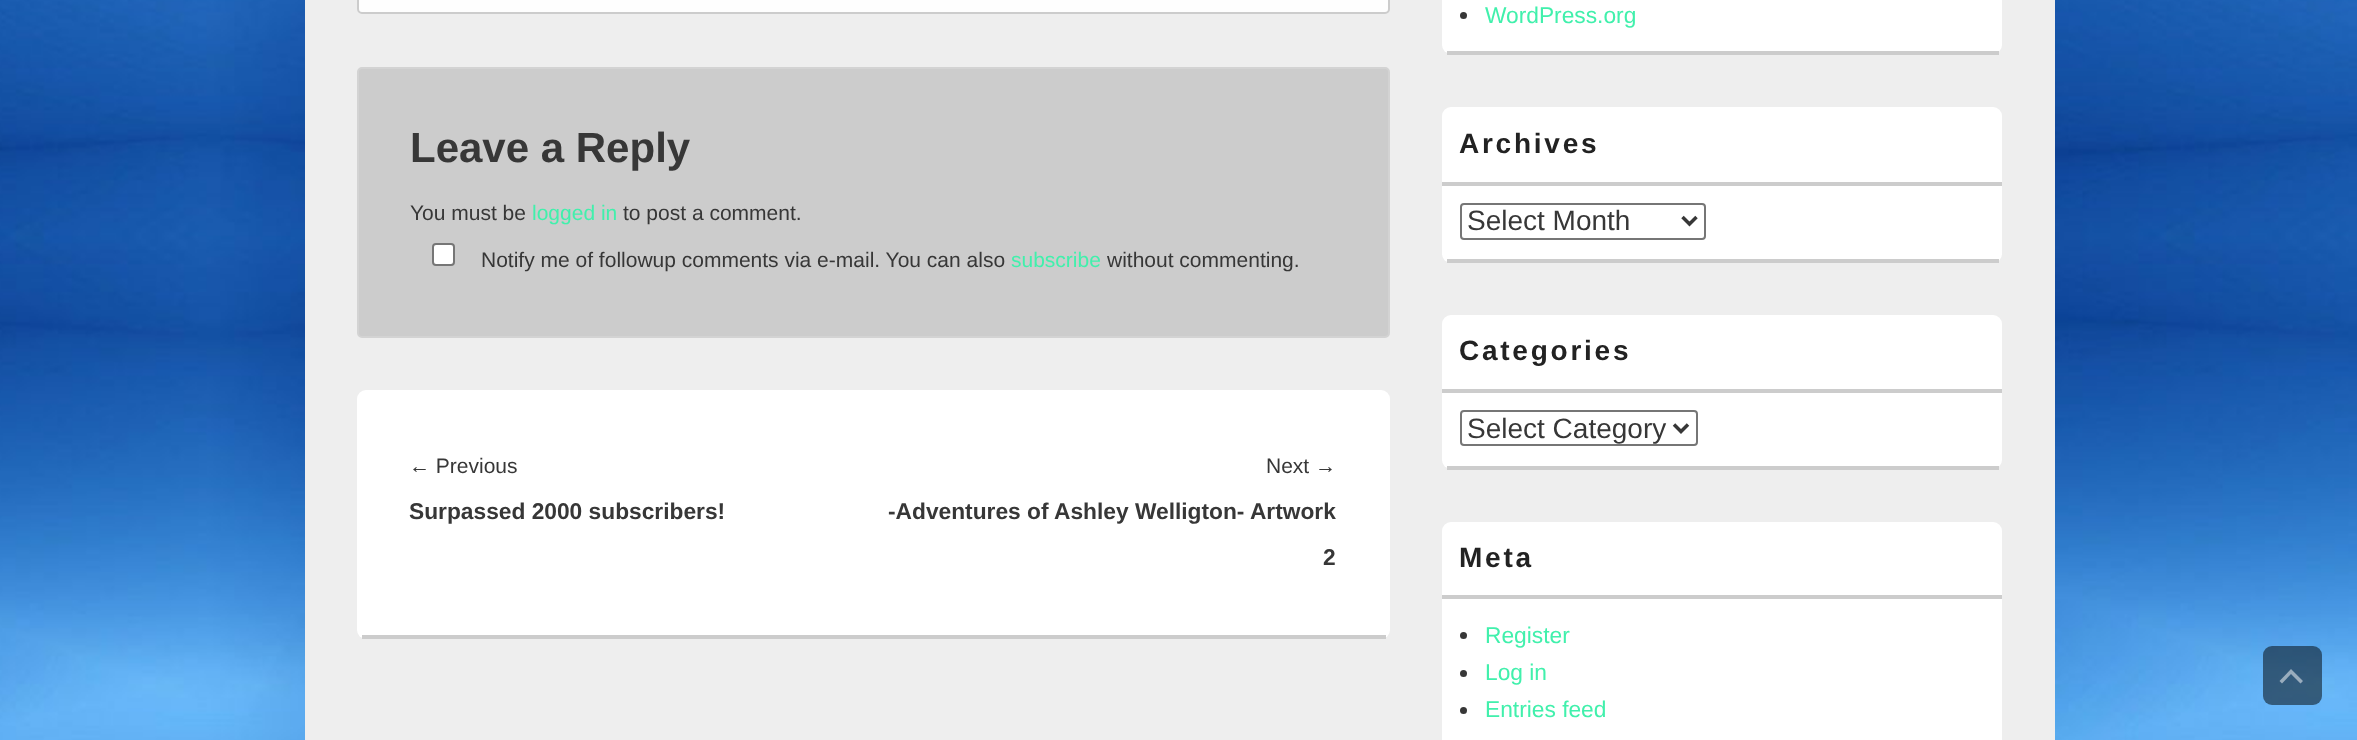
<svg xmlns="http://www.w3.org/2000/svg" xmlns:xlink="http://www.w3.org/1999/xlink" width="2357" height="740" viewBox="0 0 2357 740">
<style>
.cls-1{font:bold 42px Liberation Sans;fill:#373737}
.cls-2{font:21px Liberation Sans;fill:#373737}
.cls-3{font:21px Liberation Sans;fill:#41f0ac}
.cls-4{font:bold 22.75px Liberation Sans;fill:#373737}
.cls-5{font:22.75px Liberation Sans;fill:#41f0ac}
.cls-6{font:bold 28px Liberation Sans;letter-spacing:2.75px;fill:#222222}
.cls-7{font:28px Liberation Sans;fill:#373737}
</style>
<rect width="100%" height="100%" fill="#ffffff"/>
<image xlink:href="image0.png" x="0" y="0" width="2357" height="740"/>
<rect fill="#eeeeee" x="305" y="0" width="1750" height="740"/>
<rect fill="#fefefe" stroke="#cccccc" stroke-width="2" x="358" y="-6" width="1031" height="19" rx="4"/>
<rect fill="#cccccc" stroke="#d3d3d3" stroke-width="2" x="358" y="68" width="1031" height="269" rx="4"/>
<rect fill="#ffffff" stroke="#767676" stroke-width="2" x="433" y="244" width="21" height="21" rx="3"/>
<rect fill="#ffffff" x="357" y="390" width="1033" height="249" rx="9"/>
<rect fill="#cccccc" x="362" y="635" width="1024" height="4"/>
<rect fill="#ffffff" x="1442" y="-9" width="560" height="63" rx="9"/>
<rect fill="#cccccc" x="1447" y="51" width="552" height="4"/>
<circle fill="#373737" cx="1463.5" cy="15.5" r="3.5"/>
<rect fill="#ffffff" x="1442" y="107" width="560" height="156" rx="9"/>
<rect fill="#cccccc" x="1447" y="259" width="552" height="4"/>
<rect fill="#cccccc" x="1442" y="182" width="560" height="4"/>
<rect fill="none" stroke="#767676" stroke-width="2" x="1461" y="204" width="244" height="35" rx="3"/>
<path fill="none" stroke="#373737" stroke-width="3.5" d="M1682.5 217L1689.5 224L1696.5 217"/>
<rect fill="#ffffff" x="1442" y="315" width="560" height="154" rx="9"/>
<rect fill="#cccccc" x="1447" y="466" width="552" height="4"/>
<rect fill="#cccccc" x="1442" y="389" width="560" height="4"/>
<rect fill="none" stroke="#767676" stroke-width="2" x="1461" y="411" width="236" height="34" rx="3"/>
<path fill="none" stroke="#373737" stroke-width="3.5" d="M1674 424.5L1681 431.5L1688 424.5"/>
<rect fill="#ffffff" x="1442" y="522" width="560" height="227" rx="9"/>
<rect fill="#cccccc" x="1442" y="595" width="560" height="4"/>
<circle fill="#373737" cx="1463.5" cy="635.5" r="3.5"/>
<circle fill="#373737" cx="1463.5" cy="673.5" r="3.5"/>
<circle fill="#373737" cx="1463.5" cy="710.5" r="3.5"/>
<rect fill="#000000" fill-opacity="0.5" x="2263" y="646" width="59" height="59" rx="9"/>
<path fill="#ffffff" fill-opacity="0.5" d="M2300.5 683.5L2291 674L2282 683.5L2279.5 681L2291 669L2303 681Z"/>
<text class="cls-1" x="410" y="162">Leave a Reply</text>
<text class="cls-2" x="410" y="220">You must be</text>
<text class="cls-3" x="532" y="220">logged in</text>
<text class="cls-2" x="623" y="220">to post a comment.</text>
<text class="cls-2" x="481" y="267">Notify me of followup comments via e-mail. You can also</text>
<text class="cls-3" x="1011" y="267">subscribe</text>
<text class="cls-2" x="1107" y="267">without commenting.</text>
<text class="cls-2" x="409" y="473">← Previous</text>
<text class="cls-4" x="409" y="519">Surpassed 2000 subscribers!</text>
<text class="cls-2" x="1266" y="473">Next →</text>
<text class="cls-4" x="888" y="519">-Adventures of Ashley Welligton- Artwork</text>
<text class="cls-4" x="1323" y="565">2</text>
<text class="cls-5" x="1485" y="23">WordPress.org</text>
<text class="cls-6" x="1459" y="153">Archives</text>
<text class="cls-7" x="1467" y="230">Select Month</text>
<text class="cls-6" x="1459" y="360">Categories</text>
<text class="cls-7" x="1467" y="438">Select Category</text>
<text class="cls-6" x="1459" y="567">Meta</text>
<text class="cls-5"><tspan x="1485" y="643">Register</tspan><tspan x="1485" y="680">Log in</tspan><tspan x="1485" y="717">Entries feed</tspan></text>
</svg>
